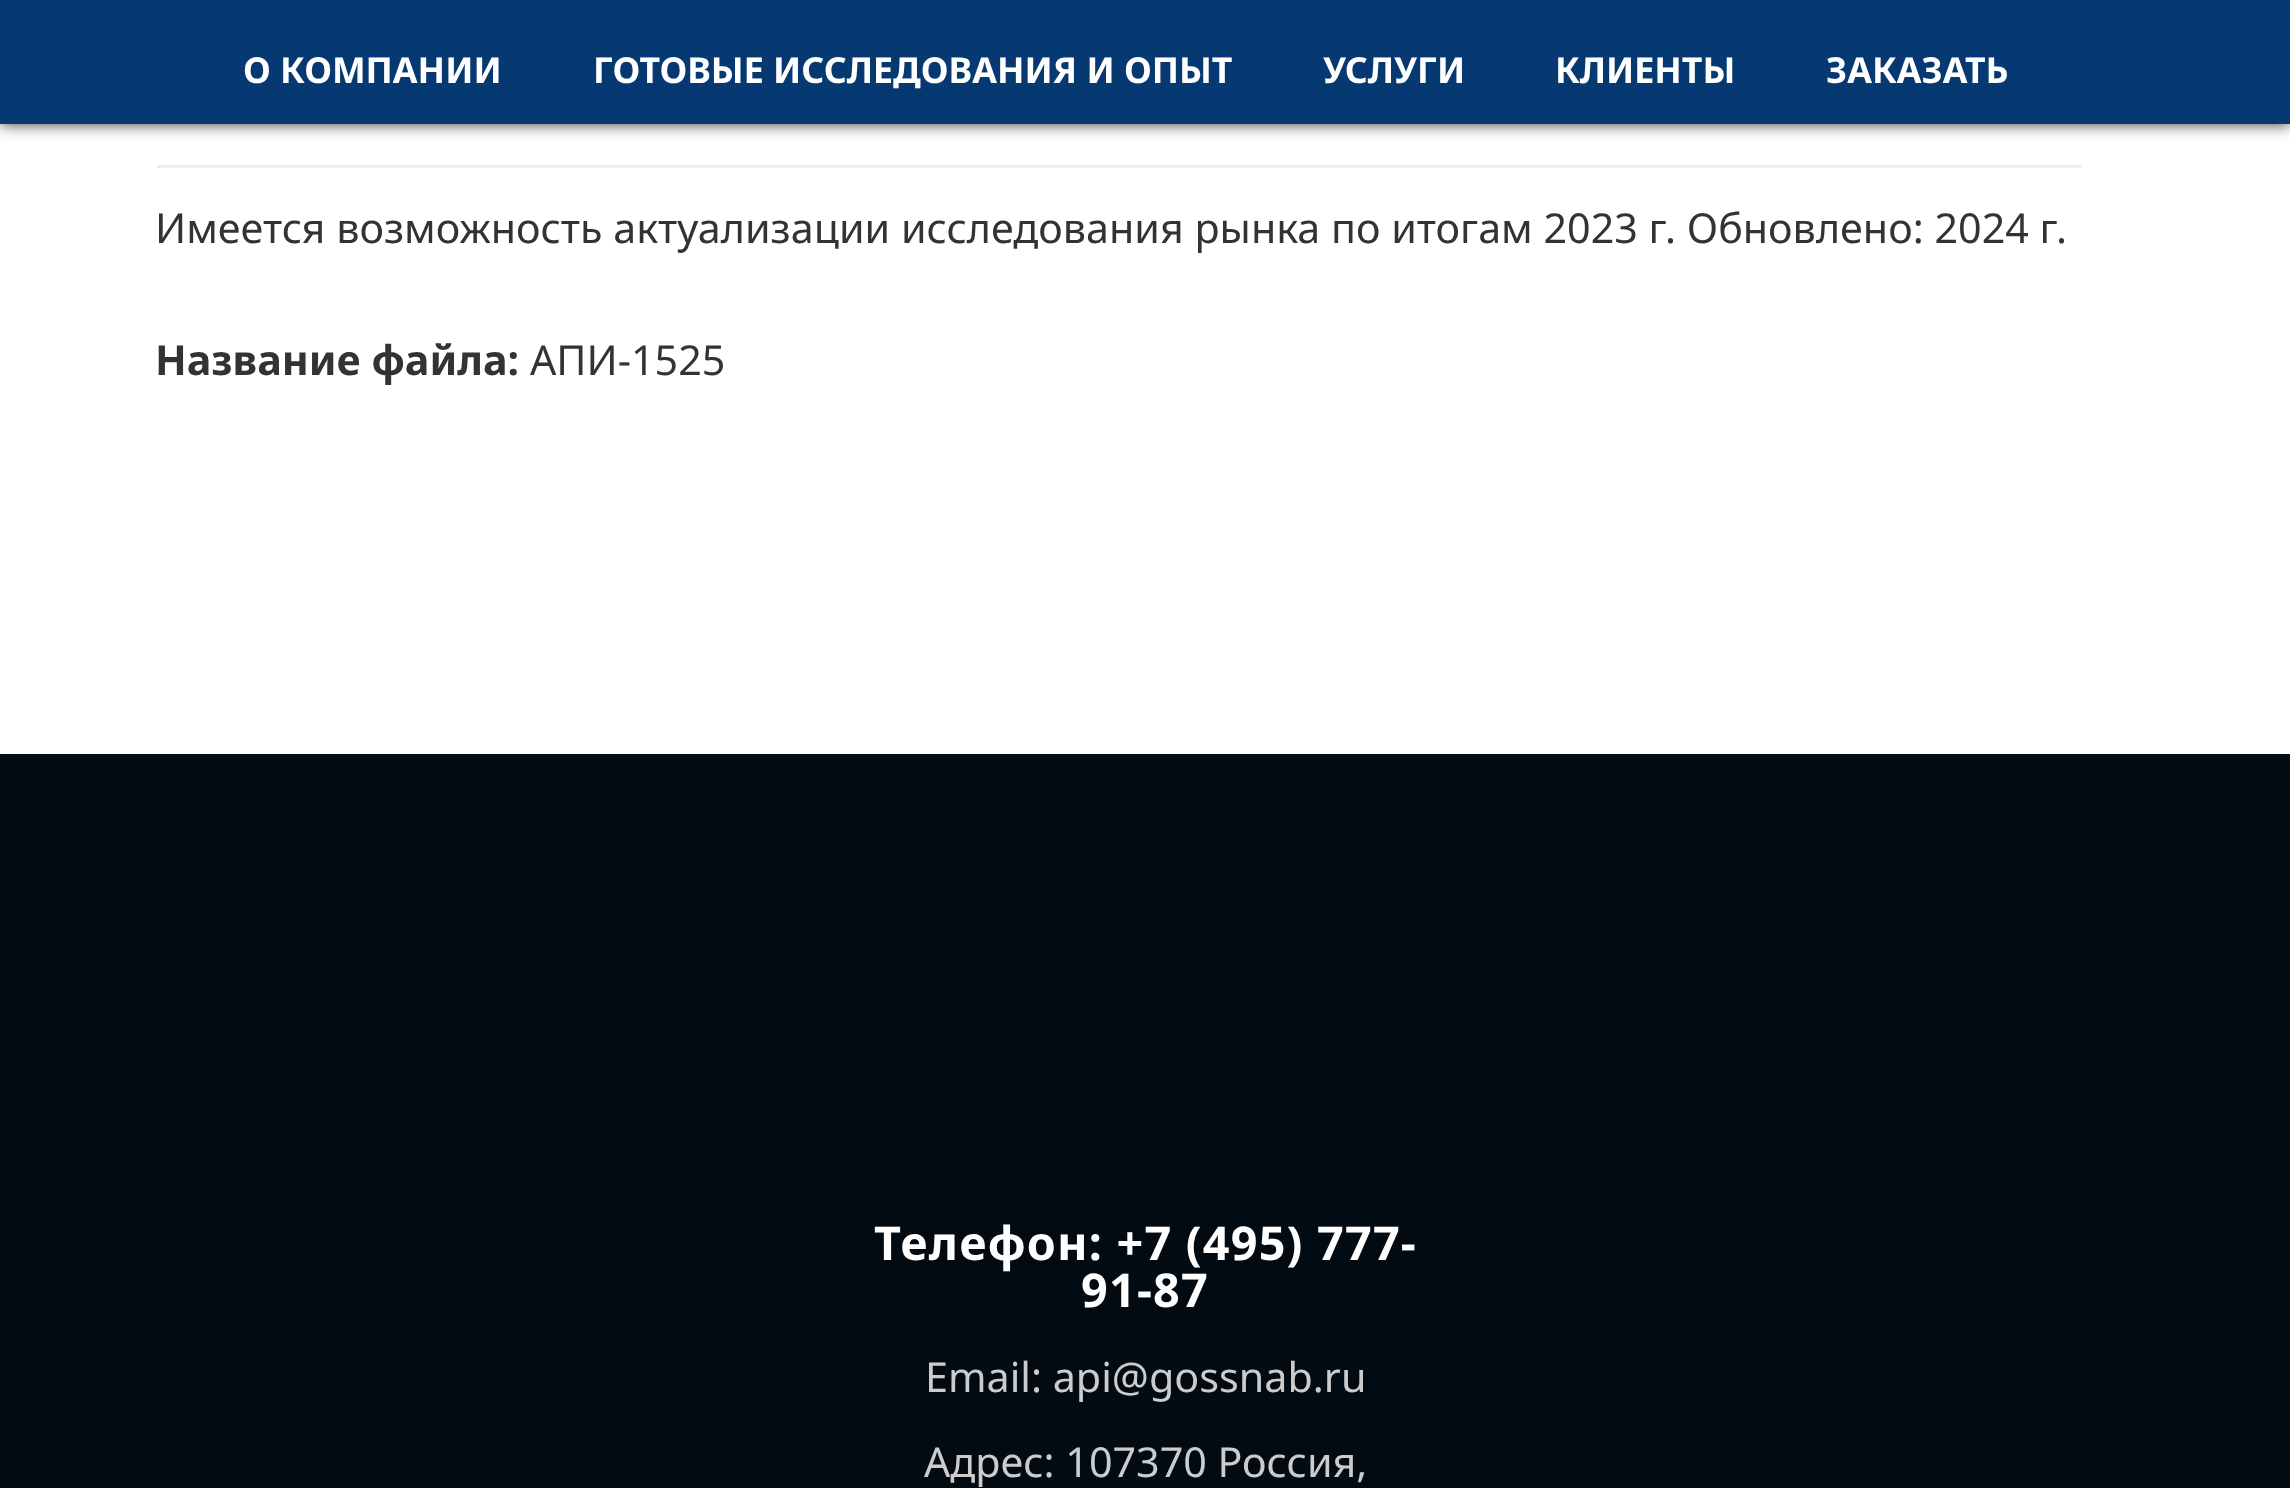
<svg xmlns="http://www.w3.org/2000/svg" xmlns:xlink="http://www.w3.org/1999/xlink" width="2290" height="1488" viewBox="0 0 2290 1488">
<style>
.cls-1{font:bold 35.75px Noto Sans;fill:#ffffff}
.cls-2{font:41.25px Noto Sans;fill:#333333}
.cls-3{font:bold 41.25px Noto Sans;fill:#333333}
.cls-4{font:bold 46.75px Noto Sans;letter-spacing:1.2px;fill:#ffffff}
.cls-5{font:41.25px Noto Sans;fill:#cccccc}
</style>
<rect width="100%" height="100%" fill="#ffffff"/>
<rect fill="#333333" filter="blur(8px)" x="0" y="0" width="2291" height="124"/>
<rect fill="#063971" x="0" y="0" width="2290" height="124"/>
<rect fill="#eeeeee" x="157" y="165" width="1925" height="3"/>
<rect fill="#020a12" x="0" y="754" width="2290" height="734"/>
<text class="cls-1" x="243" y="83">О КОМПАНИИ</text>
<text class="cls-1" x="593" y="83">ГОТОВЫЕ ИССЛЕДОВАНИЯ И ОПЫТ</text>
<text class="cls-1" x="1323" y="83">УСЛУГИ</text>
<text class="cls-1" x="1555" y="83">КЛИЕНТЫ</text>
<text class="cls-1" x="1826" y="83">ЗАКАЗАТЬ</text>
<text class="cls-2" x="155" y="243">Имеется возможность актуализации исследования рынка по итогам 2023 г. Обновлено: 2024 г.</text>
<text class="cls-3" x="155" y="375">Название файла:</text>
<text class="cls-2" x="530" y="375">АПИ-1525</text>
<text class="cls-4" x="874" y="1260">Телефон: +7 (495) 777-</text>
<text class="cls-4" x="1081" y="1307">91-87</text>
<text class="cls-5" x="925" y="1392">Email: api@gossnab.ru</text>
<text class="cls-5" x="924" y="1477">Адрес: 107370 Россия,</text>
</svg>
